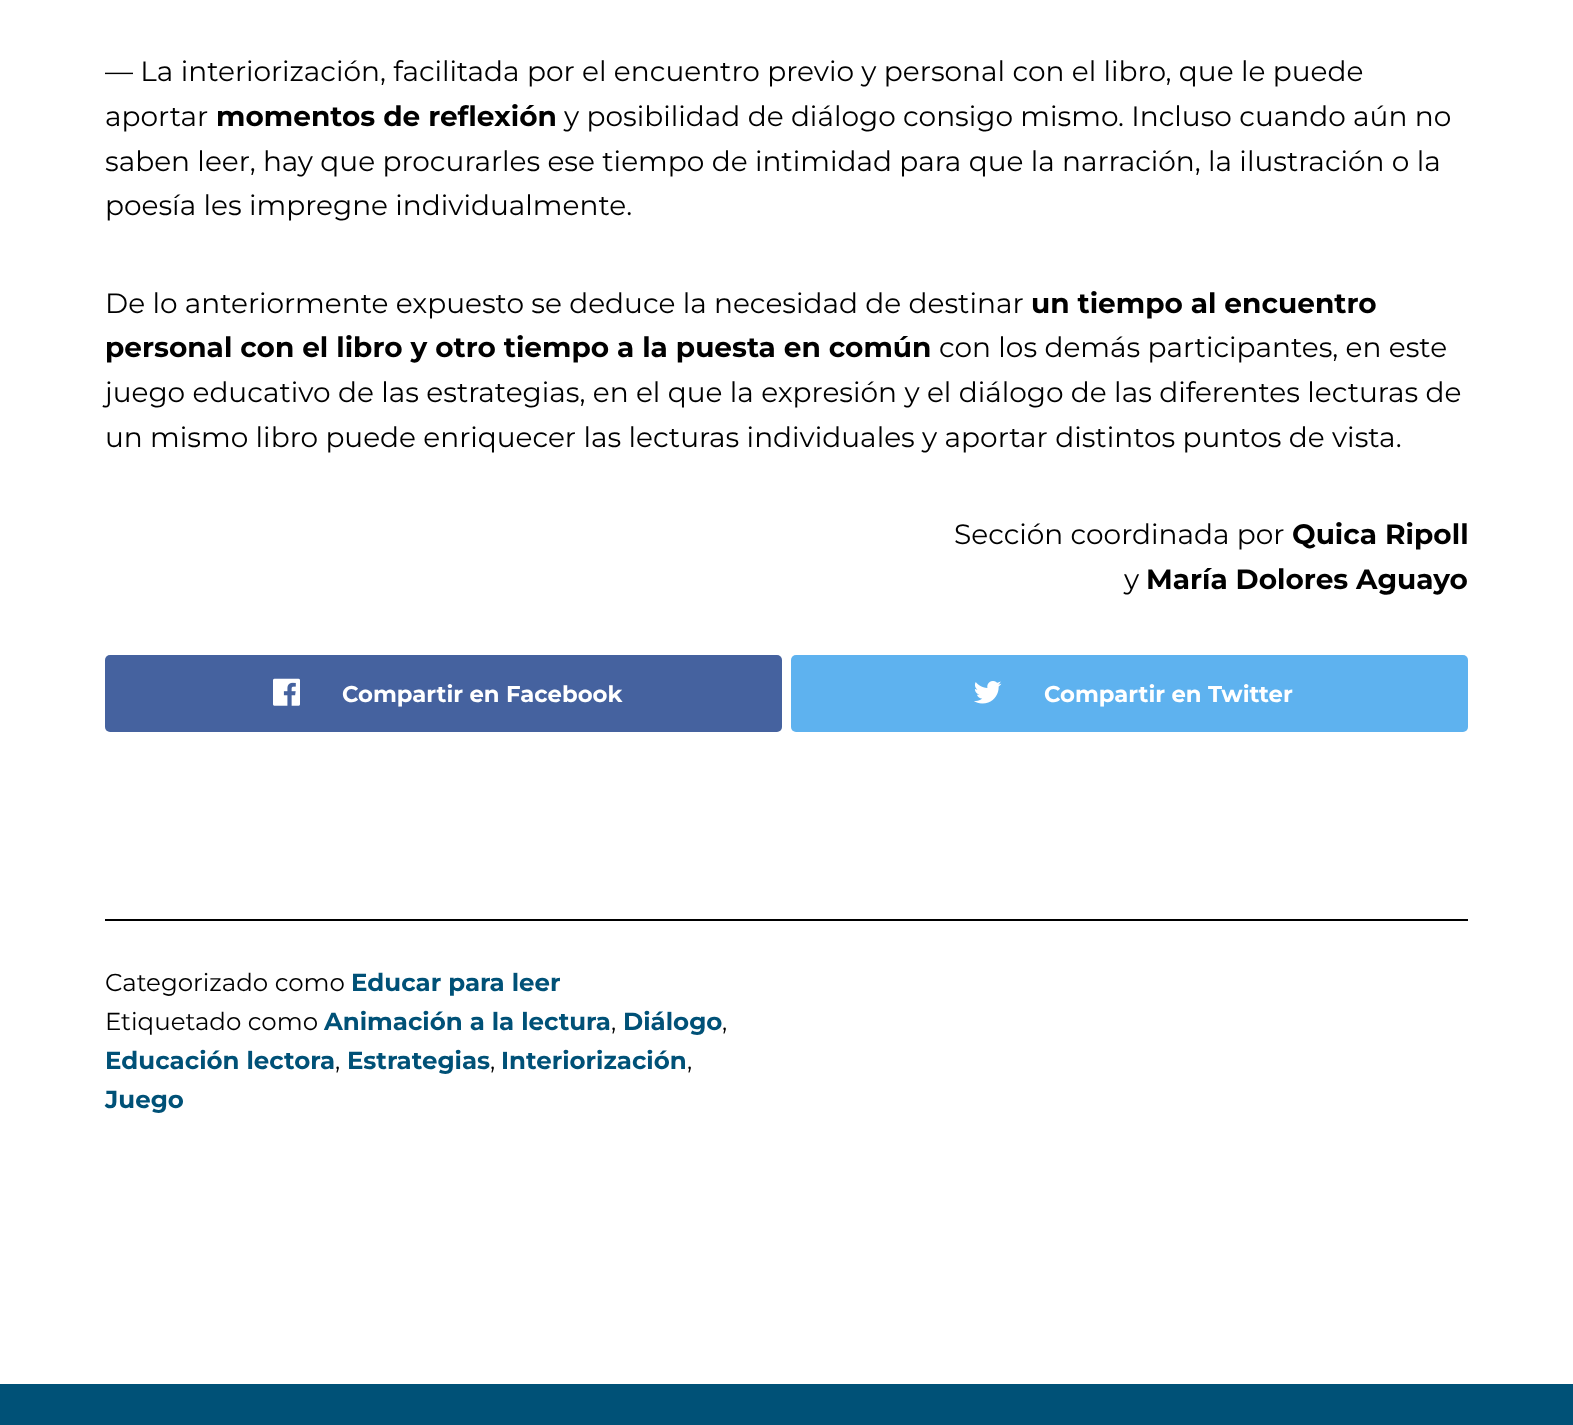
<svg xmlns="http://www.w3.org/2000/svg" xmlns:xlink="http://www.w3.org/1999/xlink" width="1573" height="1425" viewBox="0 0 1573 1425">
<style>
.cls-1{font:28px Montserrat;fill:#000000}
.cls-2{font:bold 28px Montserrat;fill:#000000}
.cls-3{font:bold 22.75px Montserrat;fill:#ffffff}
.cls-4{font:24.5px Montserrat;fill:#000000}
.cls-5{font:bold 24.5px Montserrat;fill:#005177}
</style>
<rect width="100%" height="100%" fill="#ffffff"/>
<rect fill="#45629f" x="105" y="655" width="677" height="77" rx="5"/>
<image xlink:href="image0.png" x="273" y="678" width="27" height="28"/>
<rect fill="#5eb2ef" x="791" y="655" width="677" height="77" rx="5"/>
<image xlink:href="image1.png" x="974" y="681" width="28" height="23"/>
<rect fill="#000000" x="105" y="919" width="1363" height="2"/>
<rect fill="#005177" x="0" y="1384" width="1573" height="41"/>
<text class="cls-1"><tspan x="105" y="81">— La interiorización, facilitada por el encuentro previo y personal con el libro, que le puede</tspan><tspan x="105" y="126">aportar</tspan></text>
<text class="cls-2" x="216" y="126">momentos de reflexión</text>
<text class="cls-1" x="564" y="126">y posibilidad de diálogo consigo mismo. Incluso cuando aún no</text>
<text class="cls-1"><tspan x="105" y="171">saben leer, hay que procurarles ese tiempo de intimidad para que la narración, la ilustración o la</tspan><tspan x="105" y="215">poesía les impregne individualmente.</tspan></text>
<text class="cls-1" x="105" y="313">De lo anteriormente expuesto se deduce la necesidad de destinar</text>
<text class="cls-2" x="1031" y="313">un tiempo al encuentro</text>
<text class="cls-2" x="105" y="357">personal con el libro y otro tiempo a la puesta en común</text>
<text class="cls-1" x="939" y="357">con los demás participantes, en este</text>
<text class="cls-1"><tspan x="105" y="402">juego educativo de las estrategias, en el que la expresión y el diálogo de las diferentes lecturas de</tspan><tspan x="105" y="447">un mismo libro puede enriquecer las lecturas individuales y aportar distintos puntos de vista.</tspan></text>
<text class="cls-1" x="954" y="544">Sección coordinada por</text>
<text class="cls-2" x="1292" y="544">Quica Ripoll</text>
<text class="cls-1" x="1124" y="589">y</text>
<text class="cls-2" x="1146" y="589">María Dolores Aguayo</text>
<text class="cls-3" x="342" y="702">Compartir en Facebook</text>
<text class="cls-3" x="1044" y="702">Compartir en Twitter</text>
<text class="cls-4" x="105" y="991">Categorizado como</text>
<text class="cls-5" x="351" y="991">Educar para leer</text>
<text class="cls-4" x="105" y="1030">Etiquetado como</text>
<text class="cls-5" x="324" y="1030">Animación a la lectura</text>
<text class="cls-4" x="611" y="1030">,</text>
<text class="cls-5" x="623" y="1030">Diálogo</text>
<text class="cls-4" x="722" y="1030">,</text>
<text class="cls-5" x="105" y="1069">Educación lectora</text>
<text class="cls-4" x="335" y="1069">,</text>
<text class="cls-5" x="347" y="1069">Estrategias</text>
<text class="cls-4" x="490" y="1069">,</text>
<text class="cls-5" x="501" y="1069">Interiorización</text>
<text class="cls-4" x="687" y="1069">,</text>
<text class="cls-5" x="105" y="1108">Juego</text>
</svg>
